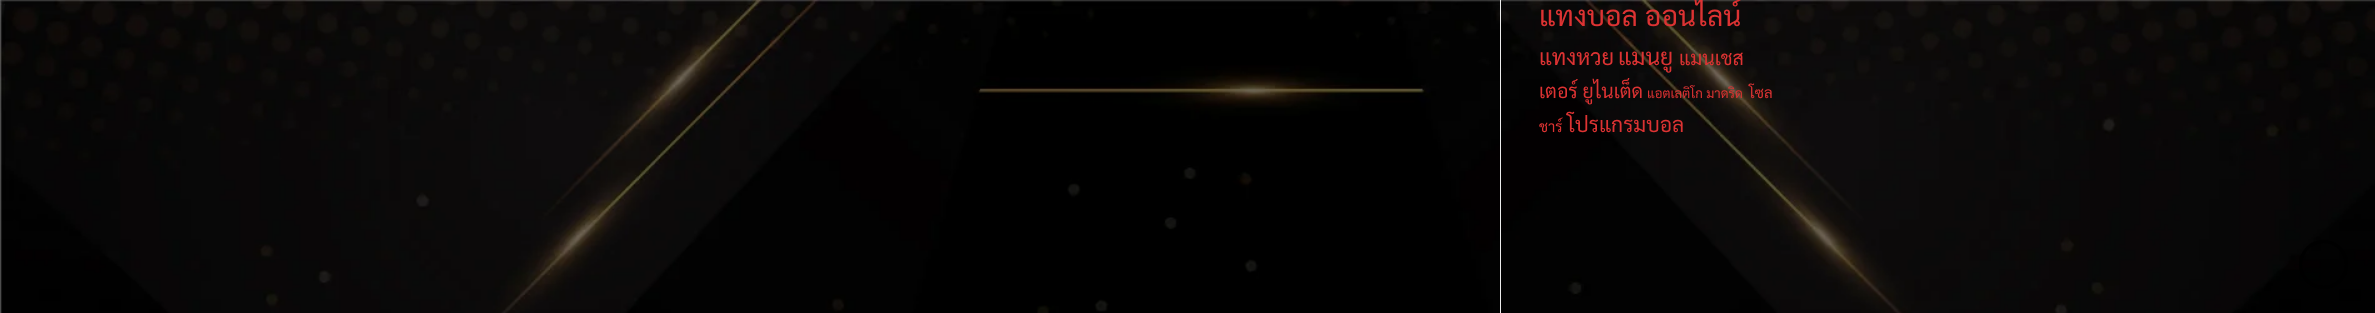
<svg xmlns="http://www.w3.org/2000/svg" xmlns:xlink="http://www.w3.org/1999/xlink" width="2375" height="313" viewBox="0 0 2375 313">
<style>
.cls-1{font:28.25px Sarabun;fill:#dd3333}
.cls-2{font:22px Sarabun;fill:#dd3333}
.cls-3{font:23px Sarabun;fill:#dd3333}
.cls-4{font:19.5px Sarabun;fill:#dd3333}
.cls-5{font:13.25px Sarabun;fill:#dd3333}
.cls-6{font:15px Sarabun;fill:#dd3333}
.cls-7{font:21px Sarabun;fill:#dd3333}
</style>
<rect width="100%" height="100%" fill="#ffffff"/>
<image xlink:href="image0.png" x="0" y="0" width="2375" height="313"/>
<rect fill="#ececec" x="1500" y="0" width="1" height="313"/>
<circle fill="none" stroke="#000000" stroke-width="3" cx="2323.5" cy="264.5" r="23"/>
<text class="cls-1" x="1539" y="26">แทงบอล ออนไลน์</text>
<text class="cls-2" x="1539" y="65">แทงหวย</text>
<text class="cls-3" x="1618" y="65">แมนยู</text>
<text class="cls-4" x="1679" y="65">แมนเชส</text>
<text class="cls-4" x="1539" y="98">เตอร์ ยูไนเต็ด</text>
<text class="cls-5" x="1647" y="98">แอตเลติโก มาดริด</text>
<text class="cls-6" x="1749" y="98">โซล</text>
<text class="cls-6" x="1539" y="132">ชาร์</text>
<text class="cls-7" x="1567" y="132">โปรแกรมบอล</text>
</svg>
